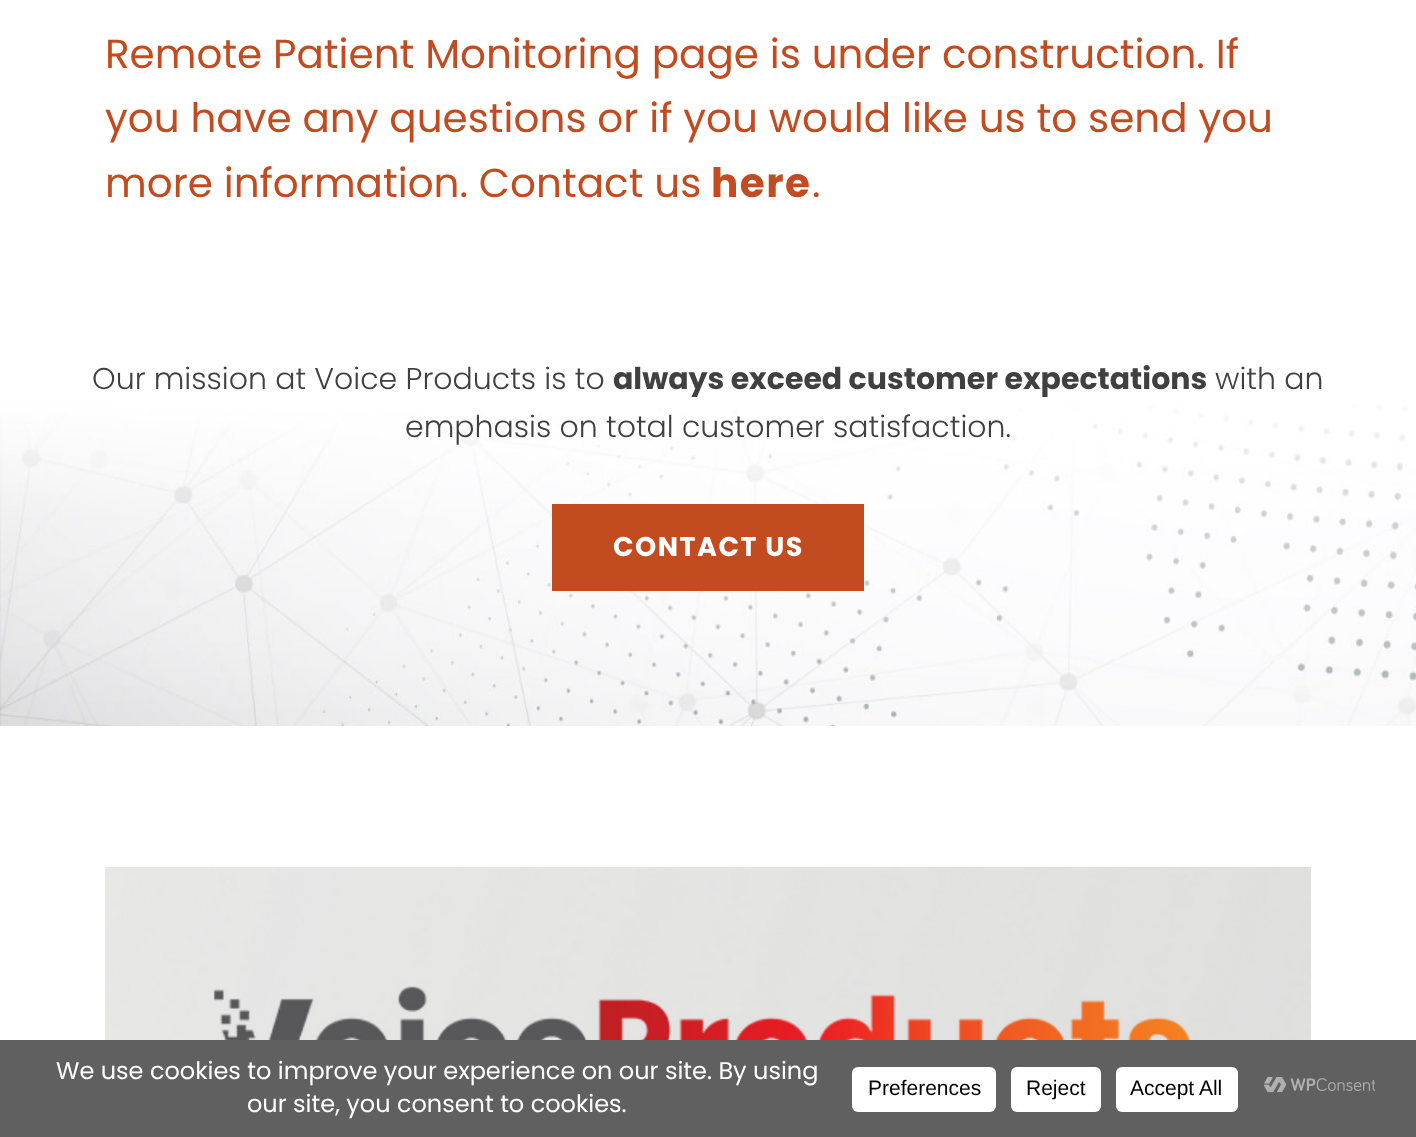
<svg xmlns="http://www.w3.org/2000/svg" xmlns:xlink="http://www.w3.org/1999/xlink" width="1416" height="1137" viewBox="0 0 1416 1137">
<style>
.cls-1{font:40.5px Poppins;fill:#c24b1f}
.cls-2{font:bold 40.5px Poppins;letter-spacing:1.5px;fill:#c24b1f}
.cls-3{font:300 30px Poppins;fill:#404040}
.cls-4{font:bold 30px Poppins;fill:#404040}
.cls-5{font:bold 27px Poppins;letter-spacing:1.5px;fill:#ffffff}
.cls-6{font:24px Poppins;fill:#ffffff}
.cls-7{font:21px Liberation Sans;fill:#000000}
</style>
<rect width="100%" height="100%" fill="#ffffff"/>
<image xlink:href="image0.png" x="0" y="405" width="1416" height="321"/>
<rect fill="#c24b1f" x="552" y="504" width="312" height="87"/>
<image xlink:href="image1.png" x="105" y="867" width="1206" height="173"/>
<rect fill="#606060" x="0" y="1040" width="1416" height="97"/>
<rect fill="#ffffff" x="852" y="1067" width="144" height="45" rx="6"/>
<rect fill="#ffffff" x="1011" y="1067" width="90" height="45" rx="6"/>
<rect fill="#ffffff" x="1116" y="1067" width="122" height="45" rx="6"/>
<image xlink:href="image2.png" x="1264" y="1077" width="112" height="16"/>
<text class="cls-1"><tspan x="105" y="68">Remote Patient Monitoring page is under construction. If</tspan><tspan x="105" y="132">you have any questions or if you would like us to send you</tspan><tspan x="105" y="197">more information. Contact us</tspan></text>
<text class="cls-2" x="711" y="197">here</text>
<text class="cls-1" x="812" y="197">.</text>
<text class="cls-3" x="92" y="389">Our mission at Voice Products is to</text>
<text class="cls-4" x="613" y="389">always exceed customer expectations</text>
<text class="cls-3" x="1215" y="389">with an</text>
<text class="cls-3" x="405" y="437">emphasis on total customer satisfaction.</text>
<text class="cls-5" x="613" y="556">CONTACT US</text>
<text class="cls-6" x="56" y="1079">We use cookies to improve your experience on our site. By using</text>
<text class="cls-6" x="247" y="1112">our site, you consent to cookies.</text>
<text class="cls-7" x="868" y="1095">Preferences</text>
<text class="cls-7" x="1026" y="1095">Reject</text>
<text class="cls-7" x="1130" y="1095">Accept All</text>
</svg>
